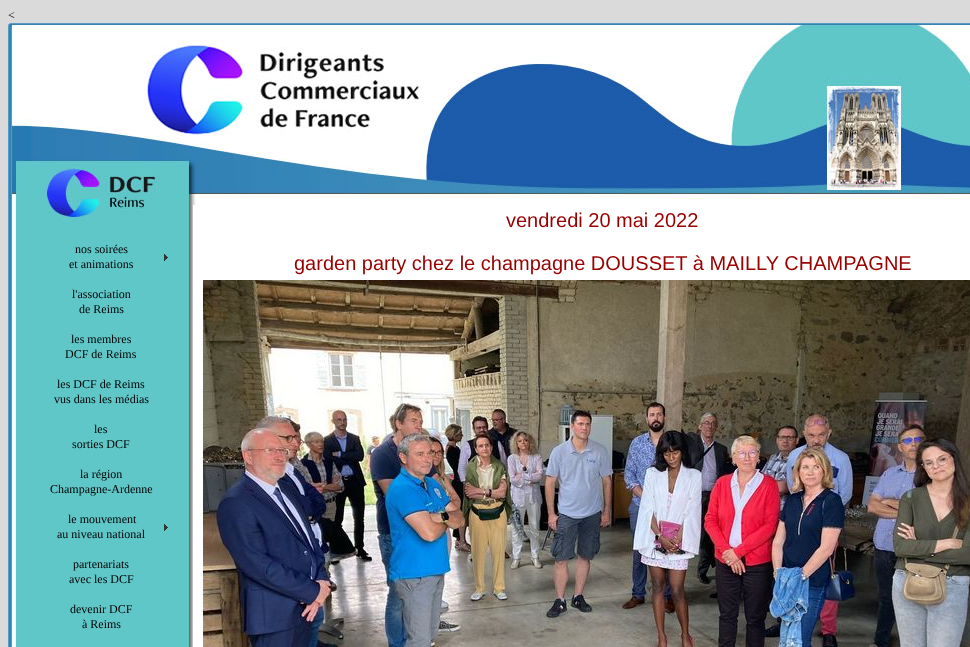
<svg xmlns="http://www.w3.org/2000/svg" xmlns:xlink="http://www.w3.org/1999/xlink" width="970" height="647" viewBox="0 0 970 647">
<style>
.cls-1{font:12px Liberation Serif;fill:#000000}
.cls-2{font:20px Liberation Sans;fill:#990000}
</style>
<rect width="100%" height="100%" fill="#dadada"/>
<image xlink:href="image0.png" x="8" y="23" width="962" height="624"/>
<image xlink:href="image1.png" x="164" y="254" width="4" height="7"/>
<image xlink:href="image1.png" x="164" y="524" width="4" height="7"/>
<rect fill="#ffffff" x="193" y="205" width="3" height="442"/>
<image xlink:href="image2.png" x="203" y="280" width="767" height="367"/>
<text class="cls-1" x="8" y="19">&lt;</text>
<text class="cls-1" x="75" y="253">nos soirées</text>
<text class="cls-1" x="69" y="268">et animations</text>
<text class="cls-1" x="72" y="298">l'association</text>
<text class="cls-1" x="79" y="313">de Reims</text>
<text class="cls-1" x="71" y="343">les membres</text>
<text class="cls-1" x="65" y="358">DCF de Reims</text>
<text class="cls-1" x="57" y="388">les DCF de Reims</text>
<text class="cls-1" x="54" y="403">vus dans les médias</text>
<text class="cls-1" x="94" y="433">les</text>
<text class="cls-1" x="72" y="448">sorties DCF</text>
<text class="cls-1" x="80" y="478">la région</text>
<text class="cls-1" x="50" y="493">Champagne-Ardenne</text>
<text class="cls-1" x="68" y="523">le mouvement</text>
<text class="cls-1" x="57" y="538">au niveau national</text>
<text class="cls-1" x="73" y="568">partenariats</text>
<text class="cls-1" x="69" y="583">avec les DCF</text>
<text class="cls-1" x="70" y="613">devenir DCF</text>
<text class="cls-1" x="82" y="628">à Reims</text>
<text class="cls-2" x="506" y="227">vendredi 20 mai 2022</text>
<text class="cls-2" x="294" y="270">garden party chez le champagne DOUSSET à MAILLY CHAMPAGNE</text>
</svg>
